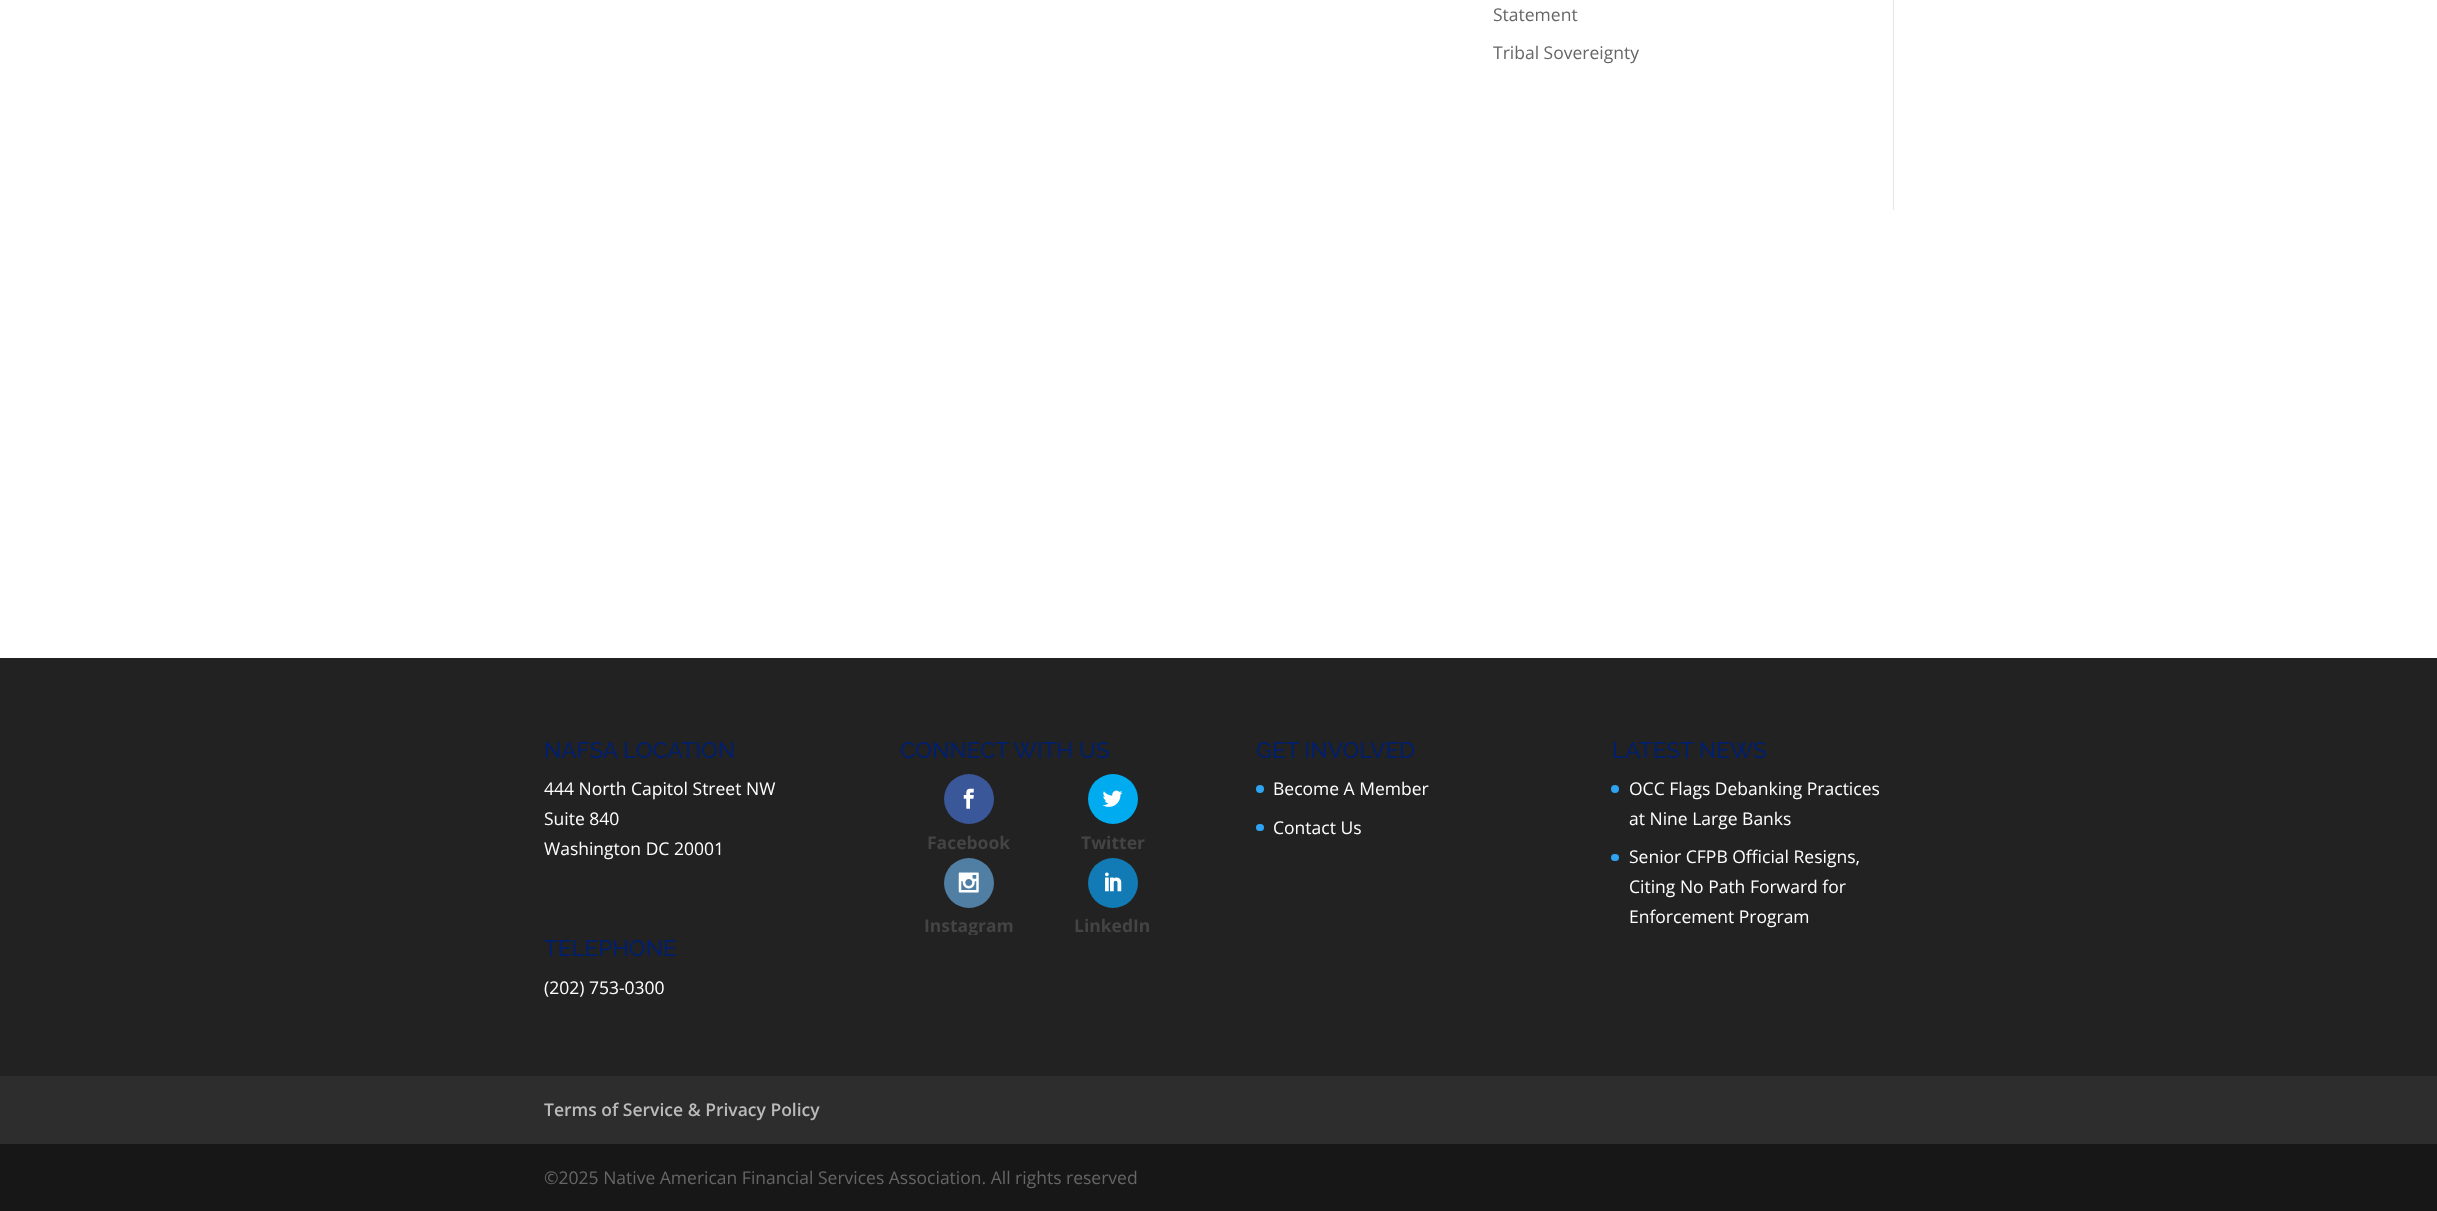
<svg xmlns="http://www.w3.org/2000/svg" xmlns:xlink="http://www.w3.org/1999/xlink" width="2437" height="1211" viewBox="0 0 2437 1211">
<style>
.cls-1{font:17.5px Open Sans;fill:#666666}
.cls-2{font:500 22.5px Raleway;fill:#001f6d}
.cls-3{font:17.5px Open Sans;fill:#ffffff}
.cls-4{font:bold 17.5px Open Sans;fill:#444444}
.cls-5{font:600 17.5px Open Sans;fill:#bbbbbb}
</style>
<defs>
<clipPath id="clip1"><rect x="900" y="858" width="138" height="77"/></clipPath>
</defs>
<rect width="100%" height="100%" fill="#ffffff"/>
<rect fill="#e6e6e6" x="1893" y="0" width="1" height="210"/>
<rect fill="#222222" x="0" y="658" width="2437" height="418"/>
<circle fill="#3a579a" cx="969" cy="799" r="25"/>
<image xlink:href="image0.png" x="963" y="788" width="11" height="21"/>
<circle fill="#00abf0" cx="1113" cy="799" r="25"/>
<image xlink:href="image1.png" x="1102" y="790" width="21" height="17"/>
<circle fill="#517fa4" cx="969" cy="883" r="25"/>
<image xlink:href="image2.png" x="958" y="872" width="21" height="21"/>
<circle fill="#127bb6" cx="1113" cy="883" r="25"/>
<image xlink:href="image3.png" x="1105" y="872" width="17" height="20"/>
<circle fill="#2ea3f2" cx="1260" cy="789" r="4"/>
<rect fill="#2ea3f2" x="1256" y="824" width="8" height="7" rx="3.5"/>
<circle fill="#2ea3f2" cx="1615" cy="789" r="4"/>
<rect fill="#2ea3f2" x="1611" y="854" width="8" height="7" rx="3.5"/>
<rect fill="#2d2d2d" x="0" y="1076" width="2437" height="68"/>
<rect fill="#171717" x="0" y="1144" width="2437" height="67"/>
<text class="cls-1" x="1493" y="21">Statement</text>
<text class="cls-1" x="1493" y="59">Tribal Sovereignty</text>
<text class="cls-2" x="544" y="758">NAFSA LOCATION</text>
<text class="cls-3"><tspan x="544" y="795">444 North Capitol Street NW</tspan><tspan x="544" y="825">Suite 840</tspan><tspan x="544" y="855">Washington DC 20001</tspan></text>
<text class="cls-2" x="544" y="956">TELEPHONE</text>
<text class="cls-3" x="544" y="994">(202) 753-0300</text>
<text class="cls-2" x="900" y="758">CONNECT WITH US</text>
<text class="cls-4" x="927" y="849">Facebook</text>
<text class="cls-4" x="1081" y="849">Twitter</text>
<g clip-path="url(#clip1)">
<text class="cls-4" x="924" y="932">Instagram</text>
</g>
<text class="cls-4" x="1074" y="932">LinkedIn</text>
<text class="cls-2" x="1256" y="758">GET INVOLVED</text>
<text class="cls-3" x="1273" y="795">Become A Member</text>
<text class="cls-3" x="1273" y="834">Contact Us</text>
<text class="cls-2" x="1612" y="758">LATEST NEWS</text>
<text class="cls-3"><tspan x="1629" y="795">OCC Flags Debanking Practices</tspan><tspan x="1629" y="825">at Nine Large Banks</tspan></text>
<text class="cls-3"><tspan x="1629" y="863">Senior CFPB Official Resigns,</tspan><tspan x="1629" y="893">Citing No Path Forward for</tspan><tspan x="1629" y="923">Enforcement Program</tspan></text>
<text class="cls-5" x="544" y="1116">Terms of Service &amp; Privacy Policy</text>
<text class="cls-1" x="544" y="1184">©2025 Native American Financial Services Association. All rights reserved</text>
</svg>
